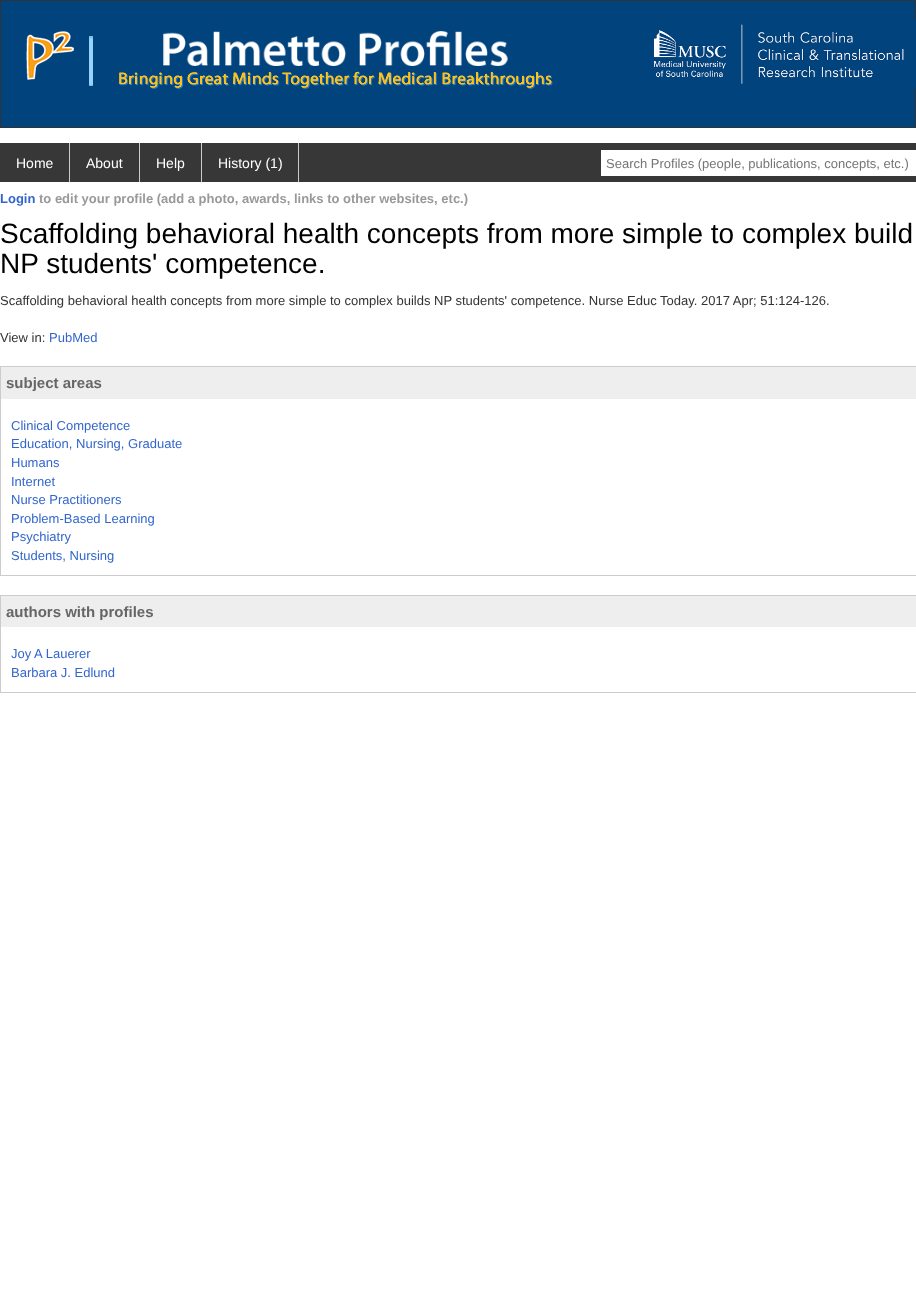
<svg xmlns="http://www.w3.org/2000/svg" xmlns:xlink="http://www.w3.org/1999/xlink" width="916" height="1303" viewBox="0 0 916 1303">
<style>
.cls-1{font:14px Liberation Sans;fill:#ffffff}
.cls-2{font:13px Liberation Sans;fill:#757575}
.cls-3{font:bold 13px Liberation Sans;fill:#3366cc}
.cls-4{font:bold 13px Liberation Sans;fill:#999999}
.cls-5{font:28px Liberation Sans;fill:#000000}
.cls-6{font:13px Liberation Sans;fill:#333333}
.cls-7{font:13px Liberation Sans;fill:#3366cc}
.cls-8{font:bold 15px Liberation Sans;fill:#666666}
</style>
<rect width="100%" height="100%" fill="#ffffff"/>
<rect fill="#01437d" stroke="#333333" x="0.5" y="0.5" width="915" height="127"/>
<image xlink:href="image0.png" x="26" y="31" width="48" height="49"/>
<image xlink:href="image1.png" x="89" y="36" width="4" height="50"/>
<image xlink:href="image2.png" x="163" y="31" width="345" height="35"/>
<image xlink:href="image3.png" x="119" y="71" width="434" height="18"/>
<image xlink:href="image4.png" x="653" y="20" width="263" height="68"/>
<rect fill="#383737" x="0" y="143" width="916" height="39"/>
<rect fill="#cccccc" x="69" y="143" width="1" height="39"/>
<rect fill="#cccccc" x="139" y="143" width="1" height="39"/>
<rect fill="#cccccc" x="201" y="143" width="1" height="39"/>
<rect fill="#cccccc" x="298" y="143" width="1" height="39"/>
<rect fill="#ffffff" x="601" y="150" width="315" height="26"/>
<rect fill="none" stroke="#cccccc" x="0.5" y="366.5" width="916" height="209"/>
<rect fill="#eeeeee" x="1" y="367" width="915" height="32"/>
<rect fill="none" stroke="#cccccc" x="0.5" y="595.5" width="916" height="97"/>
<rect fill="#eeeeee" x="1" y="596" width="915" height="31"/>
<text class="cls-1" x="16" y="168">Home</text>
<text class="cls-1" x="86" y="168">About</text>
<text class="cls-1" x="156" y="168">Help</text>
<text class="cls-1" x="218" y="168">History (1)</text>
<text class="cls-2" x="606" y="168">Search Profiles (people, publications, concepts, etc.)</text>
<text class="cls-3" x="0" y="203">Login</text>
<text class="cls-4" x="39" y="203">to edit your profile (add a photo, awards, links to other websites, etc.)</text>
<text class="cls-5"><tspan x="0" y="243">Scaffolding behavioral health concepts from more simple to complex build</tspan><tspan x="0" y="273">NP students' competence.</tspan></text>
<text class="cls-6" x="0" y="305">Scaffolding behavioral health concepts from more simple to complex builds NP students' competence. Nurse Educ Today. 2017 Apr; 51:124-126.</text>
<text class="cls-6" x="0" y="342">View in:</text>
<text class="cls-7" x="49" y="342">PubMed</text>
<text class="cls-8" x="6" y="388">subject areas</text>
<text class="cls-7"><tspan x="11" y="430">Clinical Competence</tspan><tspan x="11" y="448">Education, Nursing, Graduate</tspan><tspan x="11" y="467">Humans</tspan><tspan x="11" y="486">Internet</tspan><tspan x="11" y="504">Nurse Practitioners</tspan><tspan x="11" y="523">Problem-Based Learning</tspan><tspan x="11" y="541">Psychiatry</tspan><tspan x="11" y="560">Students, Nursing</tspan></text>
<text class="cls-8" x="6" y="617">authors with profiles</text>
<text class="cls-7"><tspan x="11" y="658">Joy A Lauerer</tspan><tspan x="11" y="677">Barbara J. Edlund</tspan></text>
</svg>
